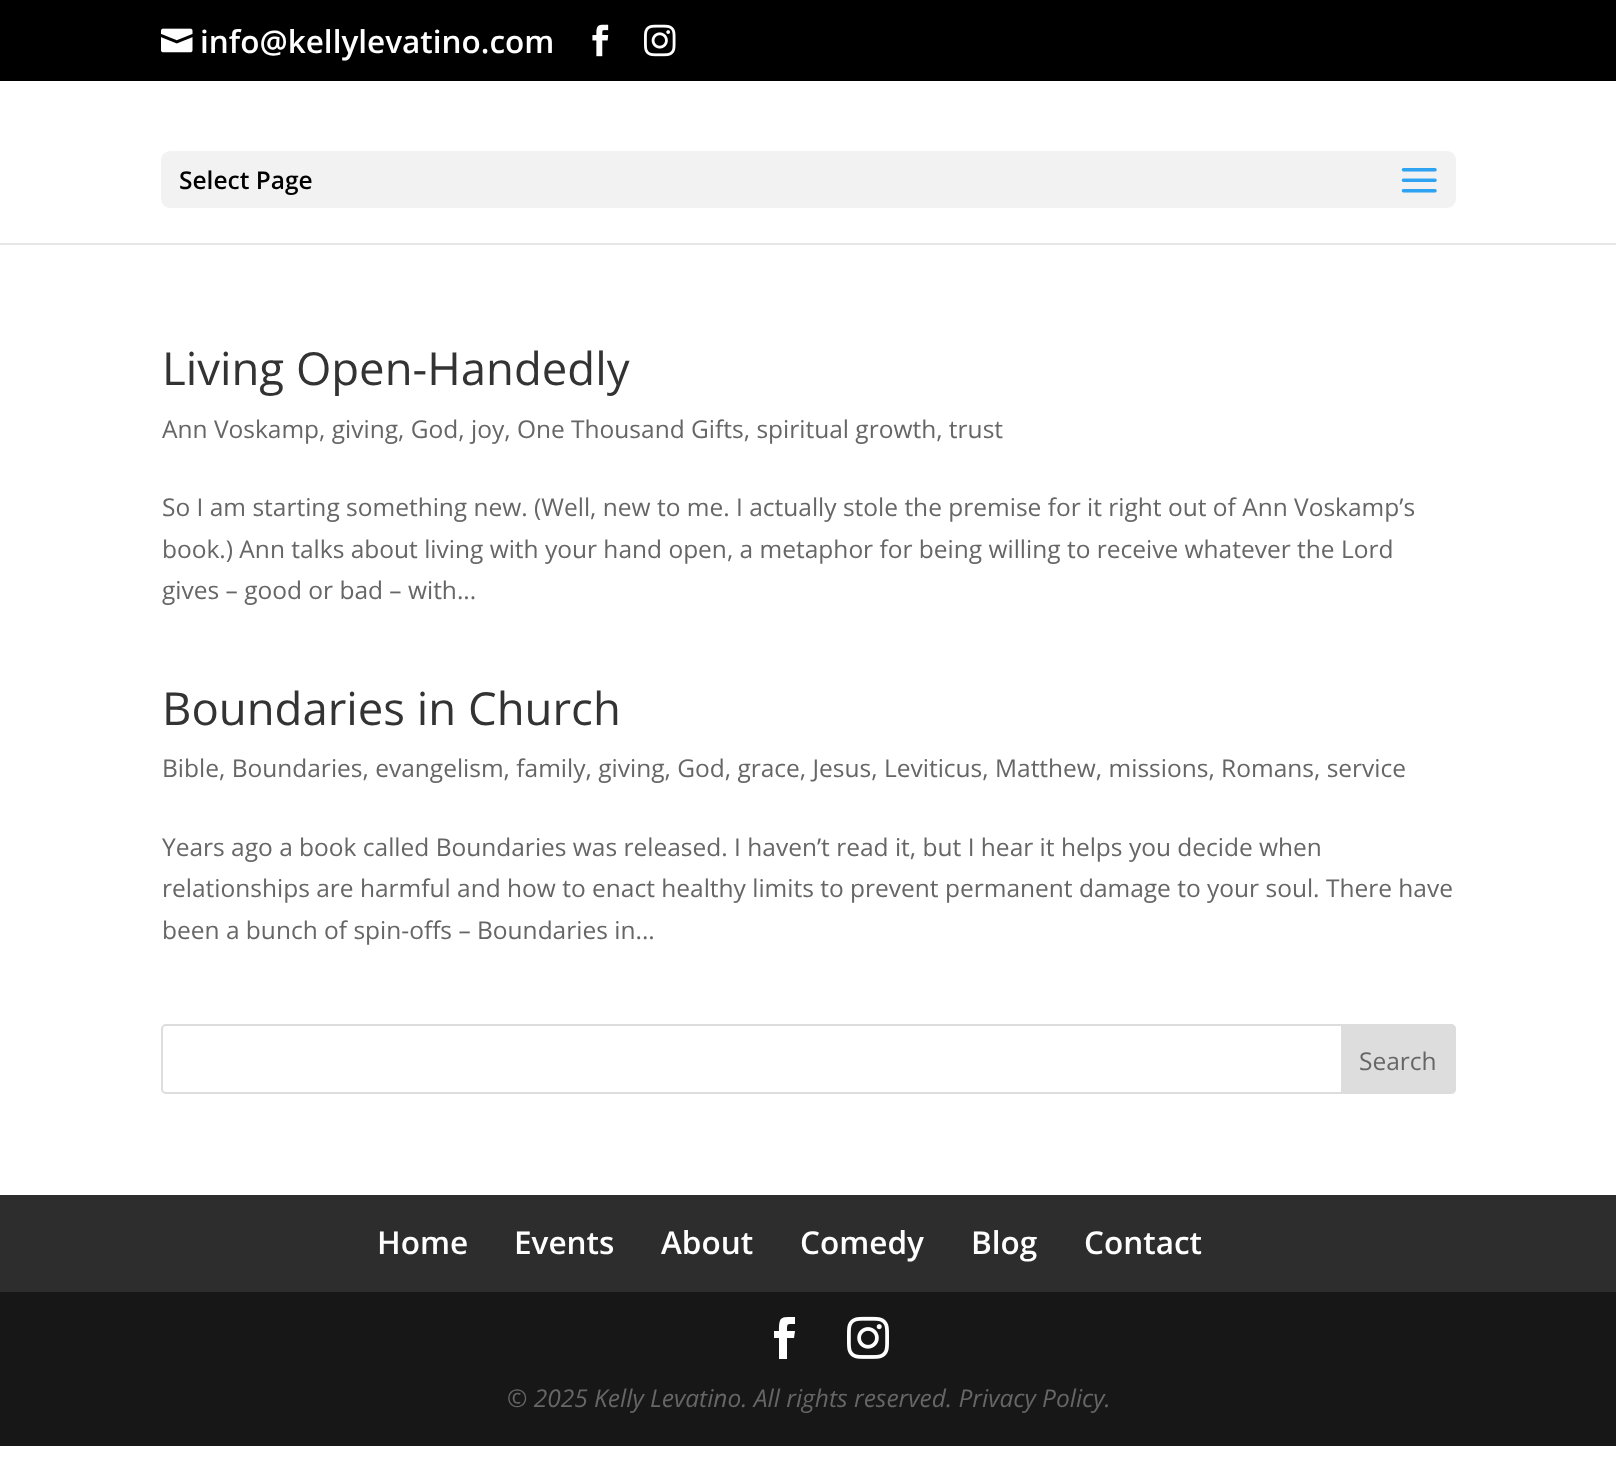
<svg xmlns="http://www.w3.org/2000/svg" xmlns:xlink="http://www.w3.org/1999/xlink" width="1616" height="1478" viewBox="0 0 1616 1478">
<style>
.cls-1{font:600 31.5px Open Sans;fill:#ffffff}
.cls-2{font:600 24.5px Open Sans;fill:#000000}
.cls-3{font:45.5px Open Sans;fill:#333333}
.cls-4{font:24.5px Open Sans;fill:#666666}
.cls-5{font:italic 24.5px Open Sans;fill:#666666}
</style>
<rect width="100%" height="100%" fill="#ffffff"/>
<rect fill="#000000" x="0" y="0" width="1616" height="81"/>
<image xlink:href="image0.png" x="161" y="28" width="32" height="25"/>
<image xlink:href="image1.png" x="592" y="24" width="17" height="33"/>
<image xlink:href="image2.png" x="644" y="24" width="32" height="33"/>
<rect fill="#e6e6e6" x="0" y="243" width="1616" height="2"/>
<rect fill="#f2f2f2" x="161" y="151" width="1295" height="57" rx="9"/>
<image xlink:href="image3.png" x="1401" y="168" width="36" height="25"/>
<rect fill="none" stroke="#dddddd" stroke-width="2" x="162" y="1025" width="1293" height="68" rx="4"/>
<path fill="#dddddd" stroke="#dddddd" stroke-width="2" d="M1342 1025H1451C1453 1025 1455 1027 1455 1029V1089C1455 1091 1453 1093 1451 1093H1342Z"/>
<rect fill="#2d2d2d" x="0" y="1195" width="1616" height="97"/>
<rect fill="#171717" x="0" y="1292" width="1616" height="154"/>
<path fill="#ffffff" d="M779 1359H787V1338H794L795 1331H787C787 1323 787 1324 795 1324V1317C781 1317 779 1316 779 1331H774V1338H779Z"/>
<image xlink:href="image4.png" x="847" y="1316" width="42" height="43"/>
<text class="cls-1" x="200" y="53">info@kellylevatino.com</text>
<text class="cls-2" x="179" y="189">Select Page</text>
<text class="cls-3" x="162" y="385">Living Open-Handedly</text>
<text class="cls-4" x="162" y="438">Ann Voskamp, giving, God, joy, One Thousand Gifts, spiritual growth, trust</text>
<text class="cls-4"><tspan x="162" y="516">So I am starting something new. (Well, new to me. I actually stole the premise for it right out of Ann Voskamp’s</tspan><tspan x="162" y="558">book.) Ann talks about living with your hand open, a metaphor for being willing to receive whatever the Lord</tspan><tspan x="162" y="599">gives – good or bad – with...</tspan></text>
<text class="cls-3" x="162" y="725">Boundaries in Church</text>
<text class="cls-4" x="162" y="777">Bible, Boundaries, evangelism, family, giving, God, grace, Jesus, Leviticus, Matthew, missions, Romans, service</text>
<text class="cls-4"><tspan x="162" y="856">Years ago a book called Boundaries was released. I haven’t read it, but I hear it helps you decide when</tspan><tspan x="162" y="897">relationships are harmful and how to enact healthy limits to prevent permanent damage to your soul. There have</tspan><tspan x="162" y="939">been a bunch of spin-offs – Boundaries in...</tspan></text>
<text class="cls-4" x="1359" y="1070">Search</text>
<text class="cls-1" x="377" y="1254">Home</text>
<text class="cls-1" x="514" y="1254">Events</text>
<text class="cls-1" x="661" y="1254">About</text>
<text class="cls-1" x="800" y="1254">Comedy</text>
<text class="cls-1" x="971" y="1254">Blog</text>
<text class="cls-1" x="1084" y="1254">Contact</text>
<text class="cls-5" x="507" y="1407">© 2025 Kelly Levatino. All rights reserved. Privacy Policy.</text>
</svg>
